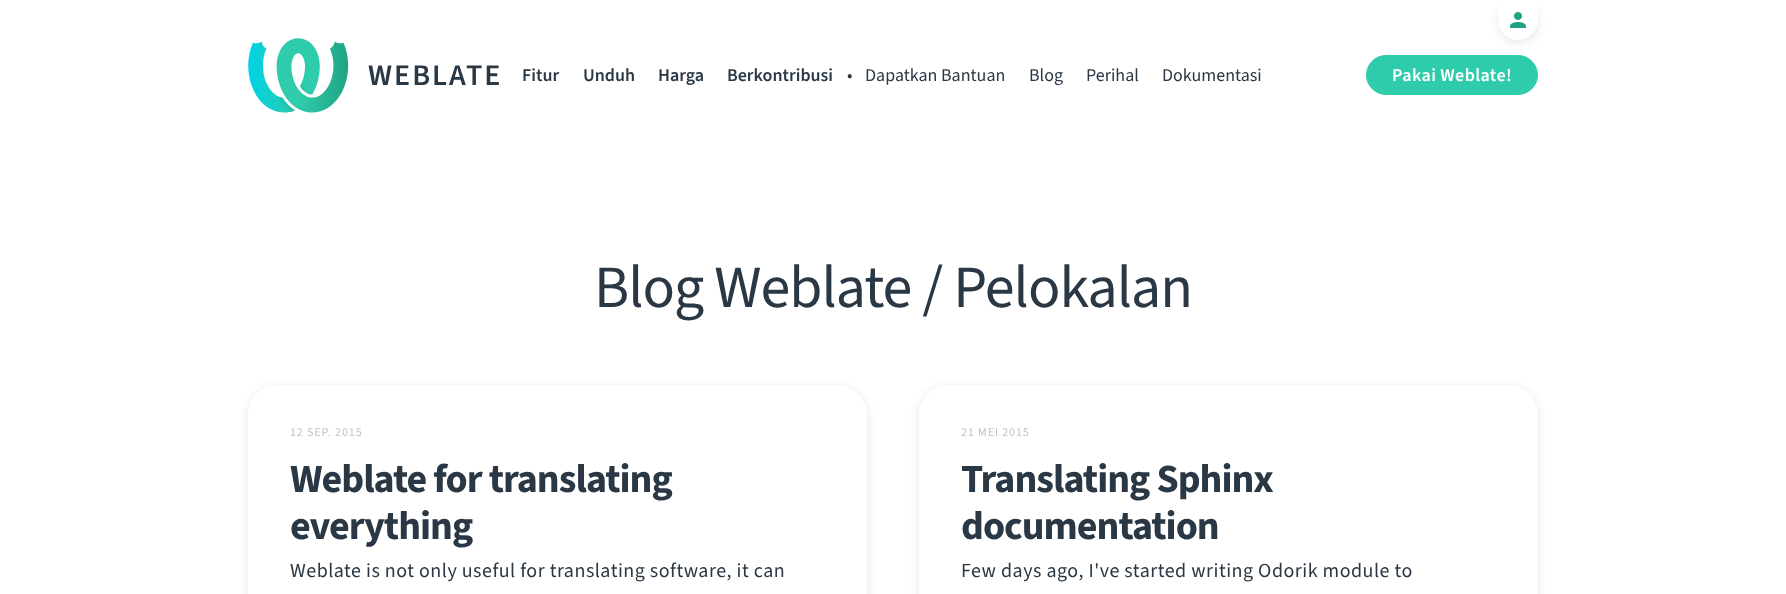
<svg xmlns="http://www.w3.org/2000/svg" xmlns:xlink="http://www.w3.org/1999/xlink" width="1786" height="594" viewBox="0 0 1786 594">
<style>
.cls-1{font:600 30px 'Source Sans 3';letter-spacing:2px;fill:#2a3744}
.cls-2{font:600 18px 'Source Sans 3';fill:#2a3744}
.cls-3{font:18px 'Source Sans 3';fill:#2a3744}
.cls-4{font:600 18px 'Source Sans 3';letter-spacing:0.4px;fill:#ffffff}
.cls-5{font:60px 'Source Sans 3';letter-spacing:-1px;fill:#2a3744}
.cls-6{font:12px 'Source Sans 3';letter-spacing:0.9px;fill:#bfc3c7}
.cls-7{font:bold 40px 'Source Sans 3';letter-spacing:-1px;fill:#2a3744}
.cls-8{font:20px 'Source Sans 3';letter-spacing:0.5px;fill:#2a3744}
</style>
<defs>
<clipPath id="clip1"><path d="M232 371H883V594H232ZM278 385H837C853.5 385 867 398.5 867 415V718C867 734.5 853.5 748 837 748H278C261.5 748 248 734.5 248 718V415C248 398.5 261.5 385 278 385Z" clip-rule="evenodd"/></clipPath>
<clipPath id="clip2"><path d="M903 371H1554V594H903ZM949 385H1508C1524.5 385 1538 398.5 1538 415V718C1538 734.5 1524.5 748 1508 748H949C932.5 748 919 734.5 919 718V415C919 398.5 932.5 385 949 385Z" clip-rule="evenodd"/></clipPath>
</defs>
<rect width="100%" height="100%" fill="#ffffff"/>
<rect fill="#2eccaa" stroke="#2eccaa" x="1366.5" y="55.5" width="171" height="39" rx="19.5"/>
<rect fill="#000000" fill-opacity="0.1" filter="blur(5px)" x="1498" y="2" width="40" height="40" rx="20"/>
<path fill="#ffffff" d="M1498 0H1538V20C1538 31 1529 40 1518 40C1507 40 1498 31 1498 20Z"/>
<image xlink:href="image0.png" x="1510" y="12" width="16" height="16"/>
<image xlink:href="image1.png" x="248" y="38" width="101" height="75"/>
<g clip-path="url(#clip1)">
<rect fill="#000000" fill-opacity="0.1" filter="blur(5px)" x="248" y="387" width="619" height="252" rx="30"/>
</g>
<g clip-path="url(#clip2)">
<rect fill="#000000" fill-opacity="0.1" filter="blur(5px)" x="919" y="387" width="619" height="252" rx="30"/>
</g>
<text class="cls-1" x="368" y="85">WEBLATE</text>
<text class="cls-2" x="522" y="81">Fitur</text>
<text class="cls-2" x="583" y="81">Unduh</text>
<text class="cls-2" x="658" y="81">Harga</text>
<text class="cls-2" x="727" y="81">Berkontribusi</text>
<text class="cls-3" x="847" y="81">•</text>
<text class="cls-3" x="865" y="81">Dapatkan Bantuan</text>
<text class="cls-3" x="1029" y="81">Blog</text>
<text class="cls-3" x="1086" y="81">Perihal</text>
<text class="cls-3" x="1162" y="81">Dokumentasi</text>
<text class="cls-4" x="1392" y="81">Pakai Weblate!</text>
<text class="cls-5" x="594" y="307">Blog Weblate / Pelokalan</text>
<text class="cls-6" x="290" y="436">12 SEP. 2015</text>
<text class="cls-7"><tspan x="290" y="492">Weblate for translating</tspan><tspan x="290" y="539">everything</tspan></text>
<text class="cls-8" x="290" y="577">Weblate is not only useful for translating software, it can</text>
<text class="cls-6" x="961" y="436">21 MEI 2015</text>
<text class="cls-7"><tspan x="961" y="492">Translating Sphinx</tspan><tspan x="961" y="539">documentation</tspan></text>
<text class="cls-8" x="961" y="577">Few days ago, I've started writing Odorik module to</text>
</svg>
